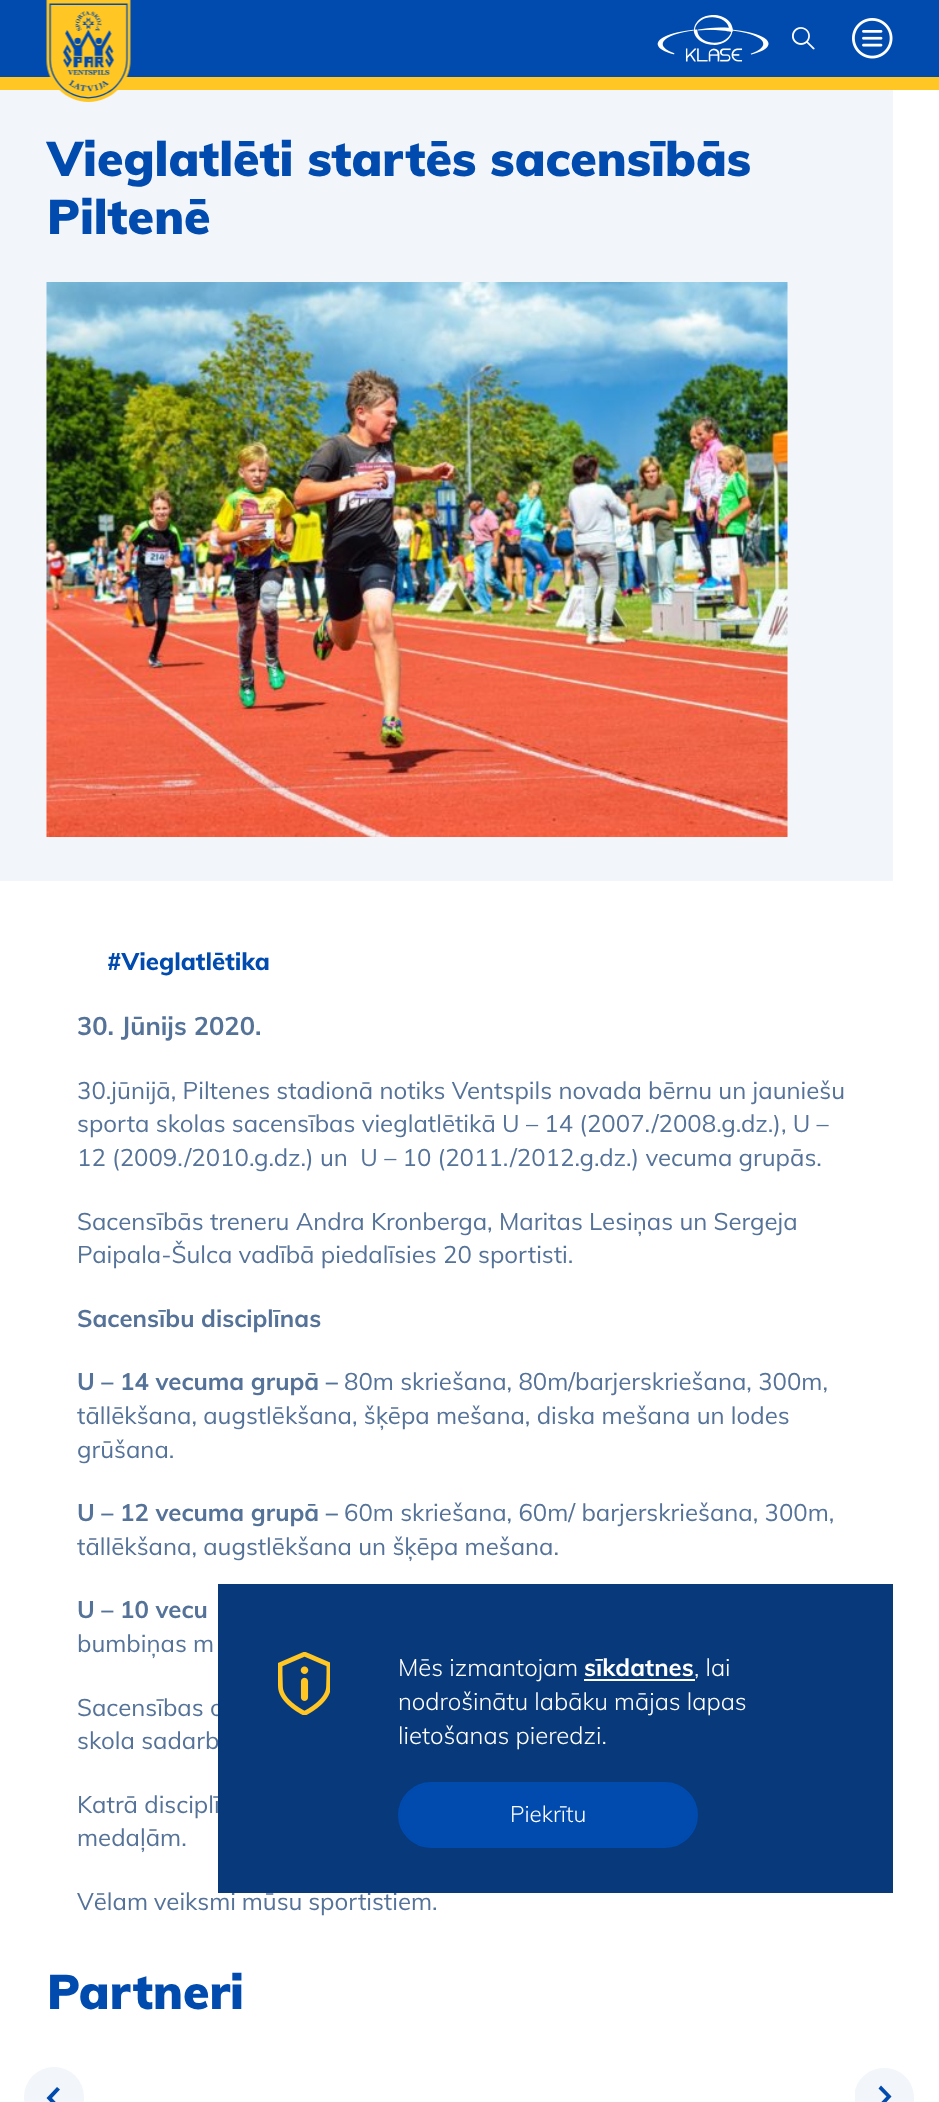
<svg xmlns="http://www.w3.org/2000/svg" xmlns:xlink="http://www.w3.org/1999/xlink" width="939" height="2102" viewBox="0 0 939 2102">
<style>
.cls-1{font:900 48px Muli;fill:#014bae}
.cls-2{font:800 24px Muli;fill:#014bae}
.cls-3{font:bold 25.5px Muli;fill:#557298}
.cls-4{font:24px Muli;fill:#557298}
.cls-5{font:bold 24px Muli;fill:#557298}
.cls-6{font:300 24px Muli;fill:#ffffff}
.cls-7{font:bold 24px Muli;fill:#ffffff}
.cls-8{font:300 22.5px Muli;fill:#ffffff}
</style>
<defs>
<clipPath id="clip1"><rect x="855" y="2067" width="60" height="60"/></clipPath>
</defs>
<rect width="100%" height="100%" fill="#ffffff"/>
<rect fill="#014bae" x="0" y="0" width="939" height="77"/>
<rect fill="#ffc624" x="0" y="77" width="939" height="13"/>
<rect fill="#f2f5f9" x="0" y="90" width="893" height="791"/>
<image xlink:href="image0.png" x="46" y="0" width="85" height="102"/>
<image xlink:href="image1.png" x="657" y="15" width="112" height="47"/>
<image xlink:href="image2.png" x="792" y="27" width="23" height="23"/>
<image xlink:href="image3.png" x="852" y="18" width="41" height="41"/>
<image xlink:href="image4.png" x="46" y="282" width="742" height="555"/>
<circle fill="#f2f5f9" cx="54" cy="2097" r="30"/>
<path fill="#014bae" fill-rule="evenodd" d="M52 2098L60 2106.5L57 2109L46.5 2098L57 2087L60 2089.5Z"/>
<g clip-path="url(#clip1)">
<path fill="#f2f5f9" d="M884 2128C868 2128 854 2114 854 2098C854 2081 868 2068 884 2068C901 2068 914 2081 914 2098C914 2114 901 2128 884 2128Z"/>
</g>
<path fill="#014bae" fill-rule="evenodd" d="M886.5 2096.5L878.5 2088.5L881 2085.5L891.5 2096.5L881 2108L878.5 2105Z"/>
<text class="cls-1"><tspan x="47" y="176">Vieglatlēti startēs sacensībās</tspan><tspan x="47" y="234">Piltenē</tspan></text>
<text class="cls-2" x="107" y="970">#Vieglatlētika</text>
<text class="cls-3" x="77" y="1035">30. Jūnijs 2020.</text>
<text class="cls-4" xml:space="preserve"><tspan x="77" y="1099">30.jūnijā, Piltenes stadionā notiks Ventspils novada bērnu un jauniešu</tspan><tspan x="77" y="1132">sporta skolas sacensības vieglatlētikā U – 14 (2007./2008.g.dz.), U –</tspan><tspan x="77" y="1166">12 (2009./2010.g.dz.) un  U – 10 (2011./2012.g.dz.) vecuma grupās.</tspan></text>
<text class="cls-4"><tspan x="77" y="1230">Sacensībās treneru Andra Kronberga, Maritas Lesiņas un Sergeja</tspan><tspan x="77" y="1263">Paipala-Šulca vadībā piedalīsies 20 sportisti.</tspan></text>
<text class="cls-5" x="77" y="1327">Sacensību disciplīnas</text>
<text class="cls-5" x="77" y="1390">U – 14 vecuma grupā –</text>
<text class="cls-4" x="344" y="1390">80m skriešana, 80m/barjerskriešana, 300m,</text>
<text class="cls-4"><tspan x="77" y="1424">tāllēkšana, augstlēkšana, šķēpa mešana, diska mešana un lodes</tspan><tspan x="77" y="1458">grūšana.</tspan></text>
<text class="cls-5" x="77" y="1521">U – 12 vecuma grupā –</text>
<text class="cls-4" x="344" y="1521">60m skriešana, 60m/ barjerskriešana, 300m,</text>
<text class="cls-4" x="77" y="1555">tāllēkšana, augstlēkšana un šķēpa mešana.</text>
<text class="cls-5" x="77" y="1618">U – 10 vecu</text>
<text class="cls-4" x="77" y="1652">bumbiņas m</text>
<text class="cls-4"><tspan x="77" y="1716">Sacensības o</tspan><tspan x="77" y="1749">skola sadarb</tspan></text>
<text class="cls-4"><tspan x="77" y="1813">Katrā disciplī</tspan><tspan x="77" y="1846">medaļām.</tspan></text>
<text class="cls-4" x="77" y="1910" word-spacing="-0.5">Vēlam veiksmi mūsu sportistiem.</text>
<text class="cls-1" x="47" y="2009">Partneri</text>
<rect fill="#08397b" x="218" y="1584" width="675" height="309"/>
<image xlink:href="image5.png" x="278" y="1652" width="52" height="63"/>
<text class="cls-6" x="398" y="1676">Mēs izmantojam</text>
<text class="cls-7" x="584" y="1676">sīkdatnes</text>
<rect fill="#ffffff" x="584" y="1679" width="111" height="2"/>
<text class="cls-6" x="694" y="1676">, lai</text>
<text class="cls-6"><tspan x="398" y="1710">nodrošinātu labāku mājas lapas</tspan><tspan x="398" y="1744">lietošanas pieredzi.</tspan></text>
<rect fill="#014bae" stroke="#014bae" stroke-width="2" x="399" y="1783" width="298" height="64" rx="32"/>
<text class="cls-8" x="510" y="1822">Piekrītu</text>
</svg>
